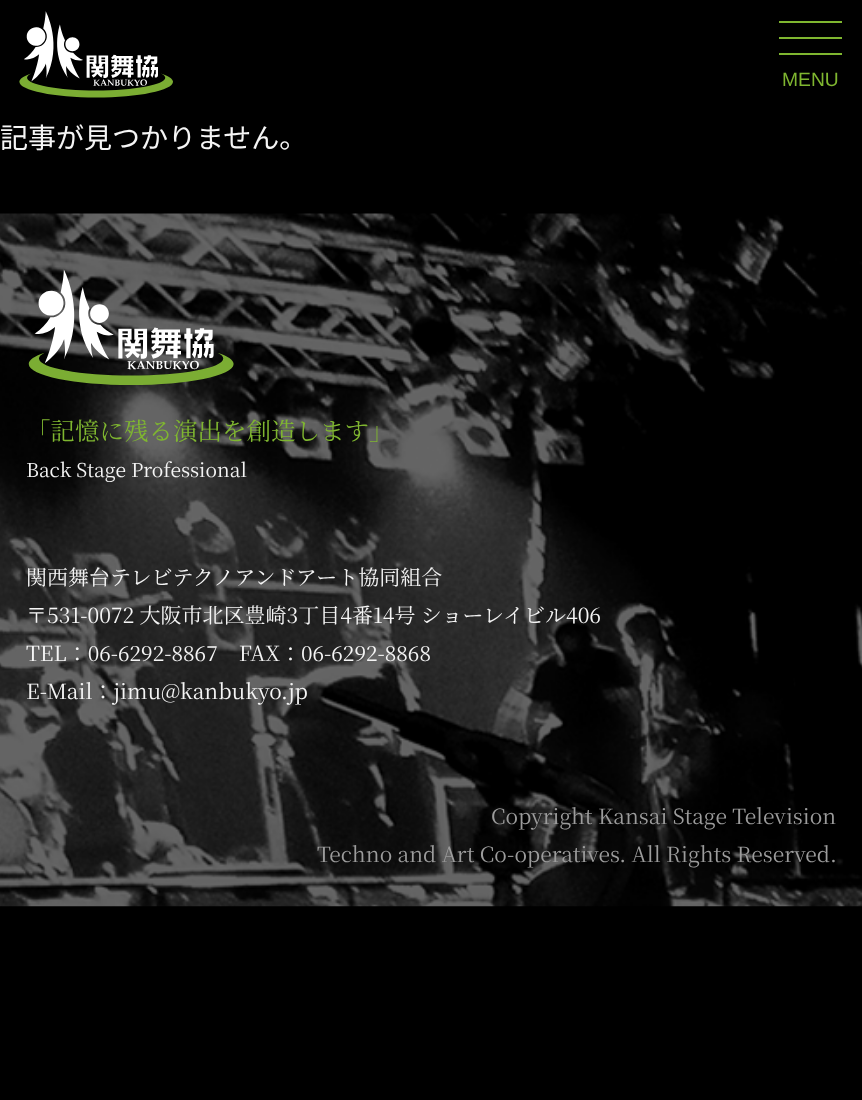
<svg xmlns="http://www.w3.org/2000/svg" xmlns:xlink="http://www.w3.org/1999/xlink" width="862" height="1100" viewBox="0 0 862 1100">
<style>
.cls-1{font:19.25px Liberation Sans;fill:#7fb630}
.cls-2{font:28px Noto Sans JP;fill:#f5f5f5}
.cls-3{font:24.5px Noto Serif JP;fill:#7fb630}
.cls-4{font:19.25px Noto Serif JP;fill:#f5f5f5}
.cls-5{font:21px Noto Serif JP;fill:#f5f5f5}
.cls-6{font:21px Noto Serif JP;fill:#9c9c9c}
</style>
<rect width="100%" height="100%" fill="#000000"/>
<image xlink:href="image0.png" x="19" y="11" width="154" height="87"/>
<rect fill="#7fb630" x="779" y="21" width="63" height="2"/>
<rect fill="#7fb630" x="779" y="37" width="63" height="2"/>
<rect fill="#7fb630" x="779" y="53" width="63" height="2"/>
<image xlink:href="image1.png" x="0" y="213" width="862" height="694"/>
<image xlink:href="image2.png" x="28" y="269" width="206" height="116"/>
<text class="cls-1" x="782" y="86">MENU</text>
<text class="cls-2" x="0" y="148">記事が見つかりません。</text>
<text class="cls-3" x="26" y="440">「記憶に残る演出を創造します」</text>
<text class="cls-4" x="26" y="477">Back Stage Professional</text>
<text class="cls-5"><tspan x="26" y="585">関西舞台テレビテクノアンドアート協同組合</tspan><tspan x="26" y="623">〒531-0072 大阪市北区豊崎3丁目4番14号 ショーレイビル406</tspan><tspan x="26" y="661">TEL：06-6292-8867　FAX：06-6292-8868</tspan><tspan x="26" y="699">E-Mail：jimu@kanbukyo.jp</tspan></text>
<text class="cls-6" x="491" y="824">Copyright Kansai Stage Television</text>
<text class="cls-6" x="317" y="862">Techno and Art Co-operatives. All Rights Reserved.</text>
</svg>
